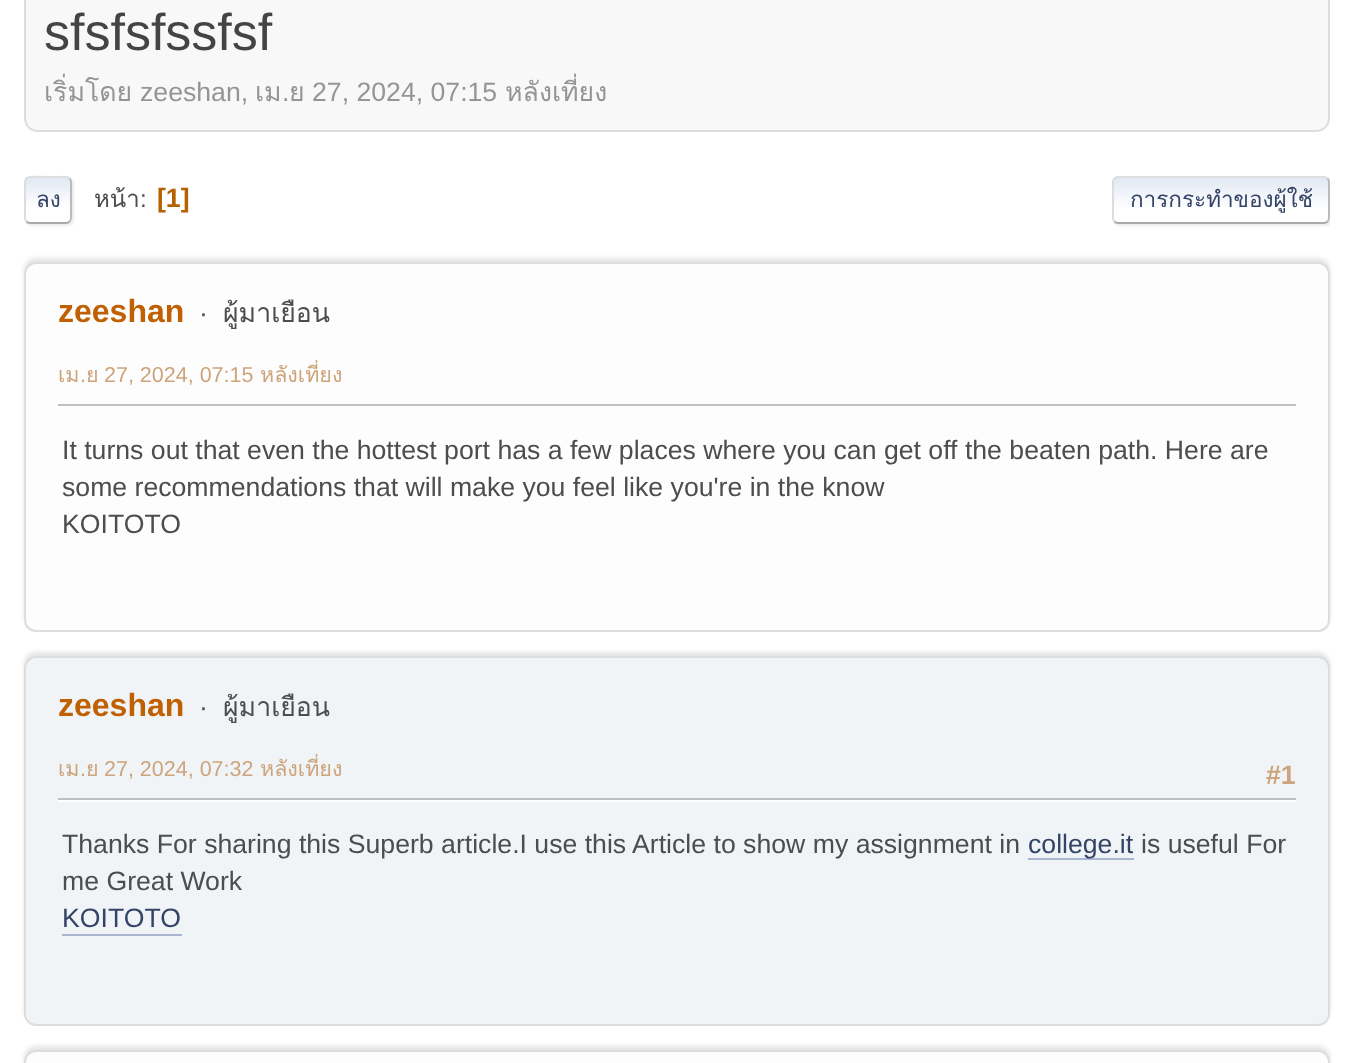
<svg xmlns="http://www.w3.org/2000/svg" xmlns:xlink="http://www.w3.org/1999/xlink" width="1353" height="1063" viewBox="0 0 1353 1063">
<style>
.cls-1{font:52px Liberation Sans;fill:#444444}
.cls-2{font:26.65px Loma;fill:#959595}
.cls-3{font:26.65px Liberation Sans;fill:#959595}
.cls-4{font:22.5px Loma;fill:#334466}
.cls-5{font:24px Loma;fill:#4d4d4d}
.cls-6{font:24px Liberation Sans;fill:#4d4d4d}
.cls-7{font:bold 26.65px Liberation Sans;fill:#b46100}
.cls-8{font:bold 32px Liberation Sans;fill:#c06002}
.cls-9{font:26.65px Liberation Sans;fill:#4d4d4d}
.cls-10{font:26.65px Loma;fill:#4d4d4d}
.cls-11{font:21.5px Loma;fill:#cda47b}
.cls-12{font:21.5px Liberation Sans;fill:#cda47b}
.cls-13{font:bold 26.65px Liberation Sans;fill:#cda47b}
.cls-14{font:26.65px Liberation Sans;fill:#334466}
</style>
<defs>
<clipPath id="clip1"><rect x="24" y="176" width="48" height="48" rx="6"/></clipPath>
<linearGradient id="g1" gradientUnits="userSpaceOnUse" x1="48" y1="178" x2="48" y2="222"><stop offset="0" stop-color="#e2e9f3"/><stop offset="0.7" stop-color="#ffffff"/></linearGradient>
<clipPath id="clip2"><rect x="24" y="162" width="1306" height="76"/></clipPath>
<clipPath id="clip3"><rect x="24" y="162" width="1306" height="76"/></clipPath>
<clipPath id="clip4"><rect x="1112" y="176" width="218" height="48" rx="6"/></clipPath>
<linearGradient id="g2" gradientUnits="userSpaceOnUse" x1="1221" y1="178" x2="1221" y2="222"><stop offset="0" stop-color="#e2e9f3"/><stop offset="0.7" stop-color="#ffffff"/></linearGradient>
</defs>
<rect width="100%" height="100%" fill="#ffffff"/>
<path fill="#f8f8f8" d="M24-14H1330V118C1330 125.5 1323.5 132 1316 132H38C30.5 132 24 125.5 24 118Z"/>
<path fill="#dddddd" fill-rule="evenodd" d="M24-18H1330V118C1330 126 1324 132 1316 132H38C30 132 24 126 24 118ZM26-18H1328V118C1328 125 1323 130 1316 130H38C31 130 26 125 26 118Z"/>
<rect fill="#dddddd" fill-opacity="0.57" filter="blur(1px)" x="26" y="178" width="48" height="48" rx="6"/>
<g clip-path="url(#clip1)">
<rect fill="url(#g1)" x="24" y="178" width="48" height="44"/>
</g>
<path fill="none" stroke="#bbbbbb" stroke-width="2" d="M69.5 178.5C70.5 179.5 71 180.5 71 182V218C71 219.5 70.5 220.5 69.5 221.5"/>
<path fill="none" stroke="#aaaaaa" stroke-width="2" d="M69.5 221.5C68.5 222.5 67.5 223 66 223H30C28.5 223 27.5 222.5 26.5 221.5"/>
<g clip-path="url(#clip2)">
<path fill="none" stroke="#dddddd" stroke-width="2" d="M26.5 221.5C24 219 25 214.5 25 212V200C25 173 21 177 48 177H60C62.5 177 67 176 69.5 178.5"/>
</g>
<g clip-path="url(#clip3)">
<rect fill="#dddddd" fill-opacity="0.57" filter="blur(1px)" x="1114" y="178" width="218" height="48" rx="6"/>
</g>
<g clip-path="url(#clip4)">
<rect fill="url(#g2)" x="1112" y="178" width="218" height="44"/>
</g>
<path fill="none" stroke="#bbbbbb" stroke-width="2" d="M1327.5 178.5C1328.5 179.5 1329 180.5 1329 182V218C1329 219.5 1328.5 220.5 1327.5 221.5"/>
<path fill="none" stroke="#aaaaaa" stroke-width="2" d="M1327.5 221.5C1326.5 222.5 1325.5 223 1324 223H1118C1116.5 223 1115.5 222.5 1114.5 221.5"/>
<path fill="none" stroke="#dddddd" stroke-width="2" d="M1114.5 221.5C1113.5 220.5 1113 219.5 1113 218V182C1113 180.5 1113.5 179.5 1114.5 178.5C1115.5 177.5 1116.5 177 1118 177H1324C1325.5 177 1326.5 177.5 1327.5 178.5"/>
<rect fill="#000000" fill-opacity="0.1" filter="blur(2px)" x="24" y="258" width="1306" height="370" rx="12"/>
<rect fill="#fdfdfd" stroke="#dddddd" stroke-width="2" x="25" y="263" width="1304" height="368" rx="11"/>
<rect fill="#bfbfbf" x="58" y="404" width="1238" height="2"/>
<rect fill="#000000" fill-opacity="0.1" filter="blur(2px)" x="24" y="652" width="1306" height="370" rx="12"/>
<rect fill="#f0f4f7" stroke="#dddddd" stroke-width="2" x="25" y="657" width="1304" height="368" rx="11"/>
<rect fill="#ffffff" x="58" y="800" width="1238" height="2"/>
<rect fill="#bfbfbf" x="58" y="798" width="1238" height="2"/>
<rect fill="#a8b6cf" x="1028" y="858" width="106" height="2"/>
<rect fill="#a8b6cf" x="62" y="934" width="120" height="2"/>
<rect fill="#000000" fill-opacity="0.1" filter="blur(2px)" x="24" y="1046" width="1306" height="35" rx="12"/>
<rect fill="#fdfdfd" stroke="#dddddd" stroke-width="2" x="25" y="1051" width="1304" height="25" rx="11"/>
<text class="cls-1" x="44" y="50">sfsfsfssfsf</text>
<text class="cls-2" x="44" y="101">เริ่มโดย</text>
<text class="cls-3" x="140" y="101">zeeshan,</text>
<text class="cls-2" x="255" y="101">เม</text>
<text class="cls-3" x="282" y="101">.</text>
<text class="cls-2" x="289" y="101">ย</text>
<text class="cls-3" x="312" y="101">27, 2024, 07:15</text>
<text class="cls-2" x="505" y="101">หลังเที่ยง</text>
<text class="cls-4" x="36" y="207">ลง</text>
<text class="cls-5" x="94" y="207">หน้า</text>
<text class="cls-6" x="140" y="207">:</text>
<text class="cls-7" x="157" y="207">[1]</text>
<text class="cls-4" x="1130" y="207">การกระทำของผู้ใช้</text>
<text class="cls-8" x="58" y="322">zeeshan</text>
<text class="cls-9" x="199" y="322">·</text>
<text class="cls-10" x="223" y="322">ผู้มาเยือน</text>
<text class="cls-11" x="58" y="382">เม</text>
<text class="cls-12" x="80" y="382">.</text>
<text class="cls-11" x="86" y="382">ย</text>
<text class="cls-12" x="104" y="382">27, 2024, 07:15</text>
<text class="cls-11" x="260" y="382">หลังเที่ยง</text>
<text class="cls-9"><tspan x="62" y="459">It turns out that even the hottest port has a few places where you can get off the beaten path. Here are</tspan><tspan x="62" y="496">some recommendations that will make you feel like you're in the know</tspan><tspan x="62" y="533">KOITOTO</tspan></text>
<text class="cls-8" x="58" y="716">zeeshan</text>
<text class="cls-9" x="199" y="716">·</text>
<text class="cls-10" x="223" y="716">ผู้มาเยือน</text>
<text class="cls-11" x="58" y="776">เม</text>
<text class="cls-12" x="80" y="776">.</text>
<text class="cls-11" x="86" y="776">ย</text>
<text class="cls-12" x="104" y="776">27, 2024, 07:32</text>
<text class="cls-11" x="260" y="776">หลังเที่ยง</text>
<text class="cls-13" x="1266" y="784">#1</text>
<text class="cls-9" x="62" y="853">Thanks For sharing this Superb article.I use this Article to show my assignment in</text>
<text class="cls-14" x="1028" y="853">college.it</text>
<text class="cls-9" x="1141" y="853">is useful For</text>
<text class="cls-9" x="62" y="890">me Great Work</text>
<text class="cls-14" x="62" y="927">KOITOTO</text>
</svg>
